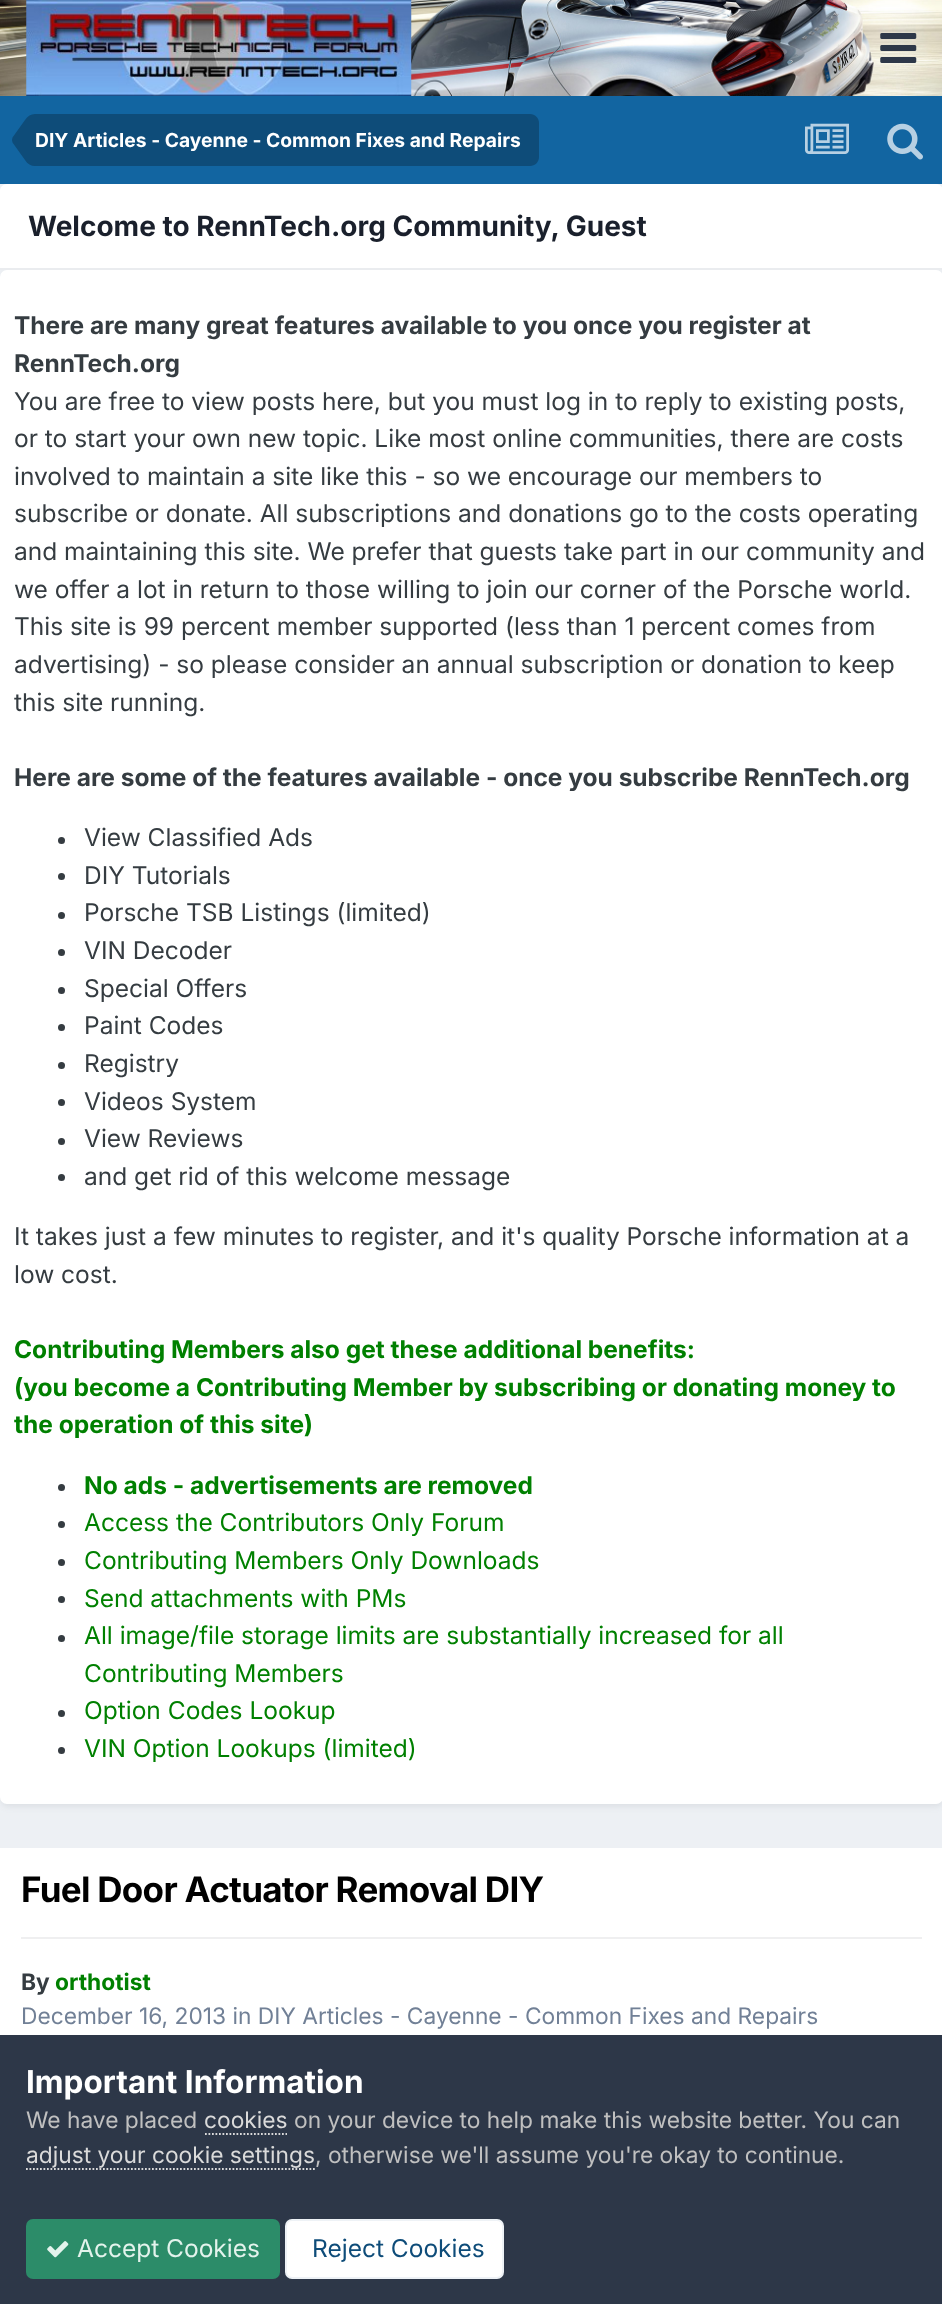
<svg xmlns="http://www.w3.org/2000/svg" xmlns:xlink="http://www.w3.org/1999/xlink" width="942" height="2304" viewBox="0 0 942 2304">
<style>
.cls-1{font:bold 19.25px Inter;fill:#ffffff}
.cls-2{font:bold 28px Inter;fill:#1a202c}
.cls-3{font:bold 24.5px Inter;fill:#353c41}
.cls-4{font:24.5px Inter;fill:#353c41}
.cls-5{font:bold 24.5px Inter;fill:#008000}
.cls-6{font:24.5px Inter;fill:#008000}
.cls-7{font:bold 35px Inter;letter-spacing:-0.7px;fill:#000000}
.cls-8{font:bold 22.75px Inter;fill:#353c41}
.cls-9{font:bold 22.75px Inter;fill:#008000}
.cls-10{font:22.75px Inter;fill:#718096}
.cls-11{font:bold 31.5px Inter;fill:#ffffff}
.cls-12{font:22.75px Inter;fill:#c0c0c0}
.cls-13{font:22.75px Inter;fill:#dadada}
.cls-14{font:24.5px Inter;fill:#e3f3ec}
.cls-15{font:24.5px Inter;fill:#0e4c79}
</style>
<rect width="100%" height="100%" fill="#edf0f4"/>
<image xlink:href="image0.png" x="0" y="0" width="942" height="96"/>
<image xlink:href="image1.png" x="26" y="0" width="386" height="96"/>
<image xlink:href="image2.png" x="880" y="33" width="37" height="30"/>
<rect fill="#1265a1" x="0" y="96" width="942" height="88"/>
<path fill="#0e4c79" d="M35 114H530C535 114 539 118 539 123V157C539 162 535 166 530 166H35Z"/>
<path fill="#0e4c79" d="M35 140V166C31 166 27.5 164 25 160L12.5 142.5L12 140ZM35 140H12L12.5 137.5L25 120C27.5 116 31 114 35 114Z"/>
<image xlink:href="image3.png" x="805" y="123" width="44" height="31"/>
<image xlink:href="image4.png" x="887" y="123" width="36" height="37"/>
<rect fill="#2d3748" fill-opacity="0.1" filter="blur(3.5px)" x="2" y="275" width="940" height="1531" rx="5"/>
<path fill="#ffffff" d="M7 184H936C940 184 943 187 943 191V270H0V191C0 187 3 184 7 184Z"/>
<rect fill="#eaecef" x="0" y="268" width="942" height="2"/>
<rect fill="#ffffff" x="0" y="270" width="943" height="1534" rx="7"/>
<circle fill="#353c41" cx="61.5" cy="840.5" r="3.5"/>
<circle fill="#353c41" cx="61.5" cy="876.5" r="3.5"/>
<circle fill="#353c41" cx="61.5" cy="915.5" r="3.5"/>
<circle fill="#353c41" cx="61.5" cy="952.5" r="3.5"/>
<circle fill="#353c41" cx="61.5" cy="990.5" r="3.5"/>
<circle fill="#353c41" cx="61.5" cy="1027.5" r="3.5"/>
<circle fill="#353c41" cx="61.5" cy="1065.5" r="3.5"/>
<circle fill="#353c41" cx="61.5" cy="1102.5" r="3.5"/>
<circle fill="#353c41" cx="61.5" cy="1141.5" r="3.5"/>
<circle fill="#353c41" cx="61.5" cy="1177.5" r="3.5"/>
<circle fill="#353c41" cx="61.5" cy="1487.5" r="3.5"/>
<circle fill="#353c41" cx="61.5" cy="1524.5" r="3.5"/>
<circle fill="#353c41" cx="61.5" cy="1562.5" r="3.5"/>
<circle fill="#353c41" cx="61.5" cy="1599.5" r="3.5"/>
<circle fill="#353c41" cx="61.5" cy="1638.5" r="3.5"/>
<circle fill="#353c41" cx="61.5" cy="1713.5" r="3.5"/>
<circle fill="#353c41" cx="61.5" cy="1750.5" r="3.5"/>
<rect fill="#ffffff" x="0" y="1848" width="942" height="187"/>
<rect fill="#efeff0" x="21" y="1937" width="901" height="2"/>
<rect fill="#2d3748" x="0" y="2035" width="942" height="269"/>
<path fill="none" stroke="#dadada" stroke-width="1.8" stroke-dasharray="1.75 1.75" d="M205 2134H287"/>
<path fill="none" stroke="#dadada" stroke-width="1.8" stroke-dasharray="1.75 1.75" d="M26 2169H315"/>
<rect fill="#2c8c69" x="26" y="2219" width="254" height="60" rx="7"/>
<image xlink:href="image5.png" x="47" y="2241" width="22" height="17"/>
<rect fill="#ffffff" x="285" y="2219" width="219" height="60" rx="7"/>
<rect fill="none" stroke="#0e4c79" stroke-opacity="0.07" stroke-width="2" x="286" y="2220" width="217" height="58" rx="6"/>
<text class="cls-1" x="35" y="147">DIY Articles - Cayenne - Common Fixes and Repairs</text>
<text class="cls-2" x="28" y="236">Welcome to RennTech.org Community, Guest</text>
<text class="cls-3"><tspan x="14" y="334">There are many great features available to you once you register at</tspan><tspan x="14" y="372">RennTech.org</tspan></text>
<text class="cls-4"><tspan x="14" y="410">You are free to view posts here, but you must log in to reply to existing posts,</tspan><tspan x="14" y="447">or to start your own new topic. Like most online communities, there are costs</tspan><tspan x="14" y="485">involved to maintain a site like this - so we encourage our members to</tspan><tspan x="14" y="522">subscribe or donate. All subscriptions and donations go to the costs operating</tspan><tspan x="14" y="560">and maintaining this site. We prefer that guests take part in our community and</tspan><tspan x="14" y="598">we offer a lot in return to those willing to join our corner of the Porsche world.</tspan><tspan x="14" y="635">This site is 99 percent member supported (less than 1 percent comes from</tspan><tspan x="14" y="673">advertising) - so please consider an annual subscription or donation to keep</tspan><tspan x="14" y="711">this site running.</tspan></text>
<text class="cls-3" x="14" y="786">Here are some of the features available - once you subscribe RennTech.org</text>
<text class="cls-4"><tspan x="84" y="846">View Classified Ads</tspan><tspan x="84" y="884">DIY Tutorials</tspan><tspan x="84" y="921">Porsche TSB Listings (limited)</tspan><tspan x="84" y="959">VIN Decoder</tspan><tspan x="84" y="997">Special Offers</tspan><tspan x="84" y="1034">Paint Codes</tspan><tspan x="84" y="1072">Registry</tspan><tspan x="84" y="1110">Videos System</tspan><tspan x="84" y="1147">View Reviews</tspan><tspan x="84" y="1185">and get rid of this welcome message</tspan></text>
<text class="cls-4"><tspan x="14" y="1245">It takes just a few minutes to register, and it's quality Porsche information at a</tspan><tspan x="14" y="1283">low cost.</tspan></text>
<text class="cls-5"><tspan x="14" y="1358">Contributing Members also get these additional benefits:</tspan><tspan x="14" y="1396">(you become a Contributing Member by subscribing or donating money to</tspan><tspan x="14" y="1433">the operation of this site)</tspan></text>
<text class="cls-5" x="84" y="1494">No ads - advertisements are removed</text>
<text class="cls-6"><tspan x="84" y="1531">Access the Contributors Only Forum</tspan><tspan x="84" y="1569">Contributing Members Only Downloads</tspan><tspan x="84" y="1607">Send attachments with PMs</tspan><tspan x="84" y="1644">All image/file storage limits are substantially increased for all</tspan><tspan x="84" y="1682">Contributing Members</tspan><tspan x="84" y="1719">Option Codes Lookup</tspan><tspan x="84" y="1757">VIN Option Lookups (limited)</tspan></text>
<text class="cls-7" x="21" y="1902">Fuel Door Actuator Removal DIY</text>
<text class="cls-8" x="21" y="1990">By</text>
<text class="cls-9" x="55" y="1990">orthotist</text>
<text class="cls-10" x="21" y="2024">December 16, 2013 in DIY Articles - Cayenne - Common Fixes and Repairs</text>
<text class="cls-11" x="26" y="2093">Important Information</text>
<text class="cls-12" x="26" y="2128">We have placed</text>
<text class="cls-13" x="204" y="2128">cookies</text>
<text class="cls-12" x="294" y="2128">on your device to help make this website better. You can</text>
<text class="cls-13" x="26" y="2163">adjust your cookie settings</text>
<text class="cls-12" x="315" y="2163">, otherwise we'll assume you're okay to continue.</text>
<text class="cls-14" x="77" y="2257">Accept Cookies</text>
<text class="cls-15" x="312" y="2257">Reject Cookies</text>
</svg>
